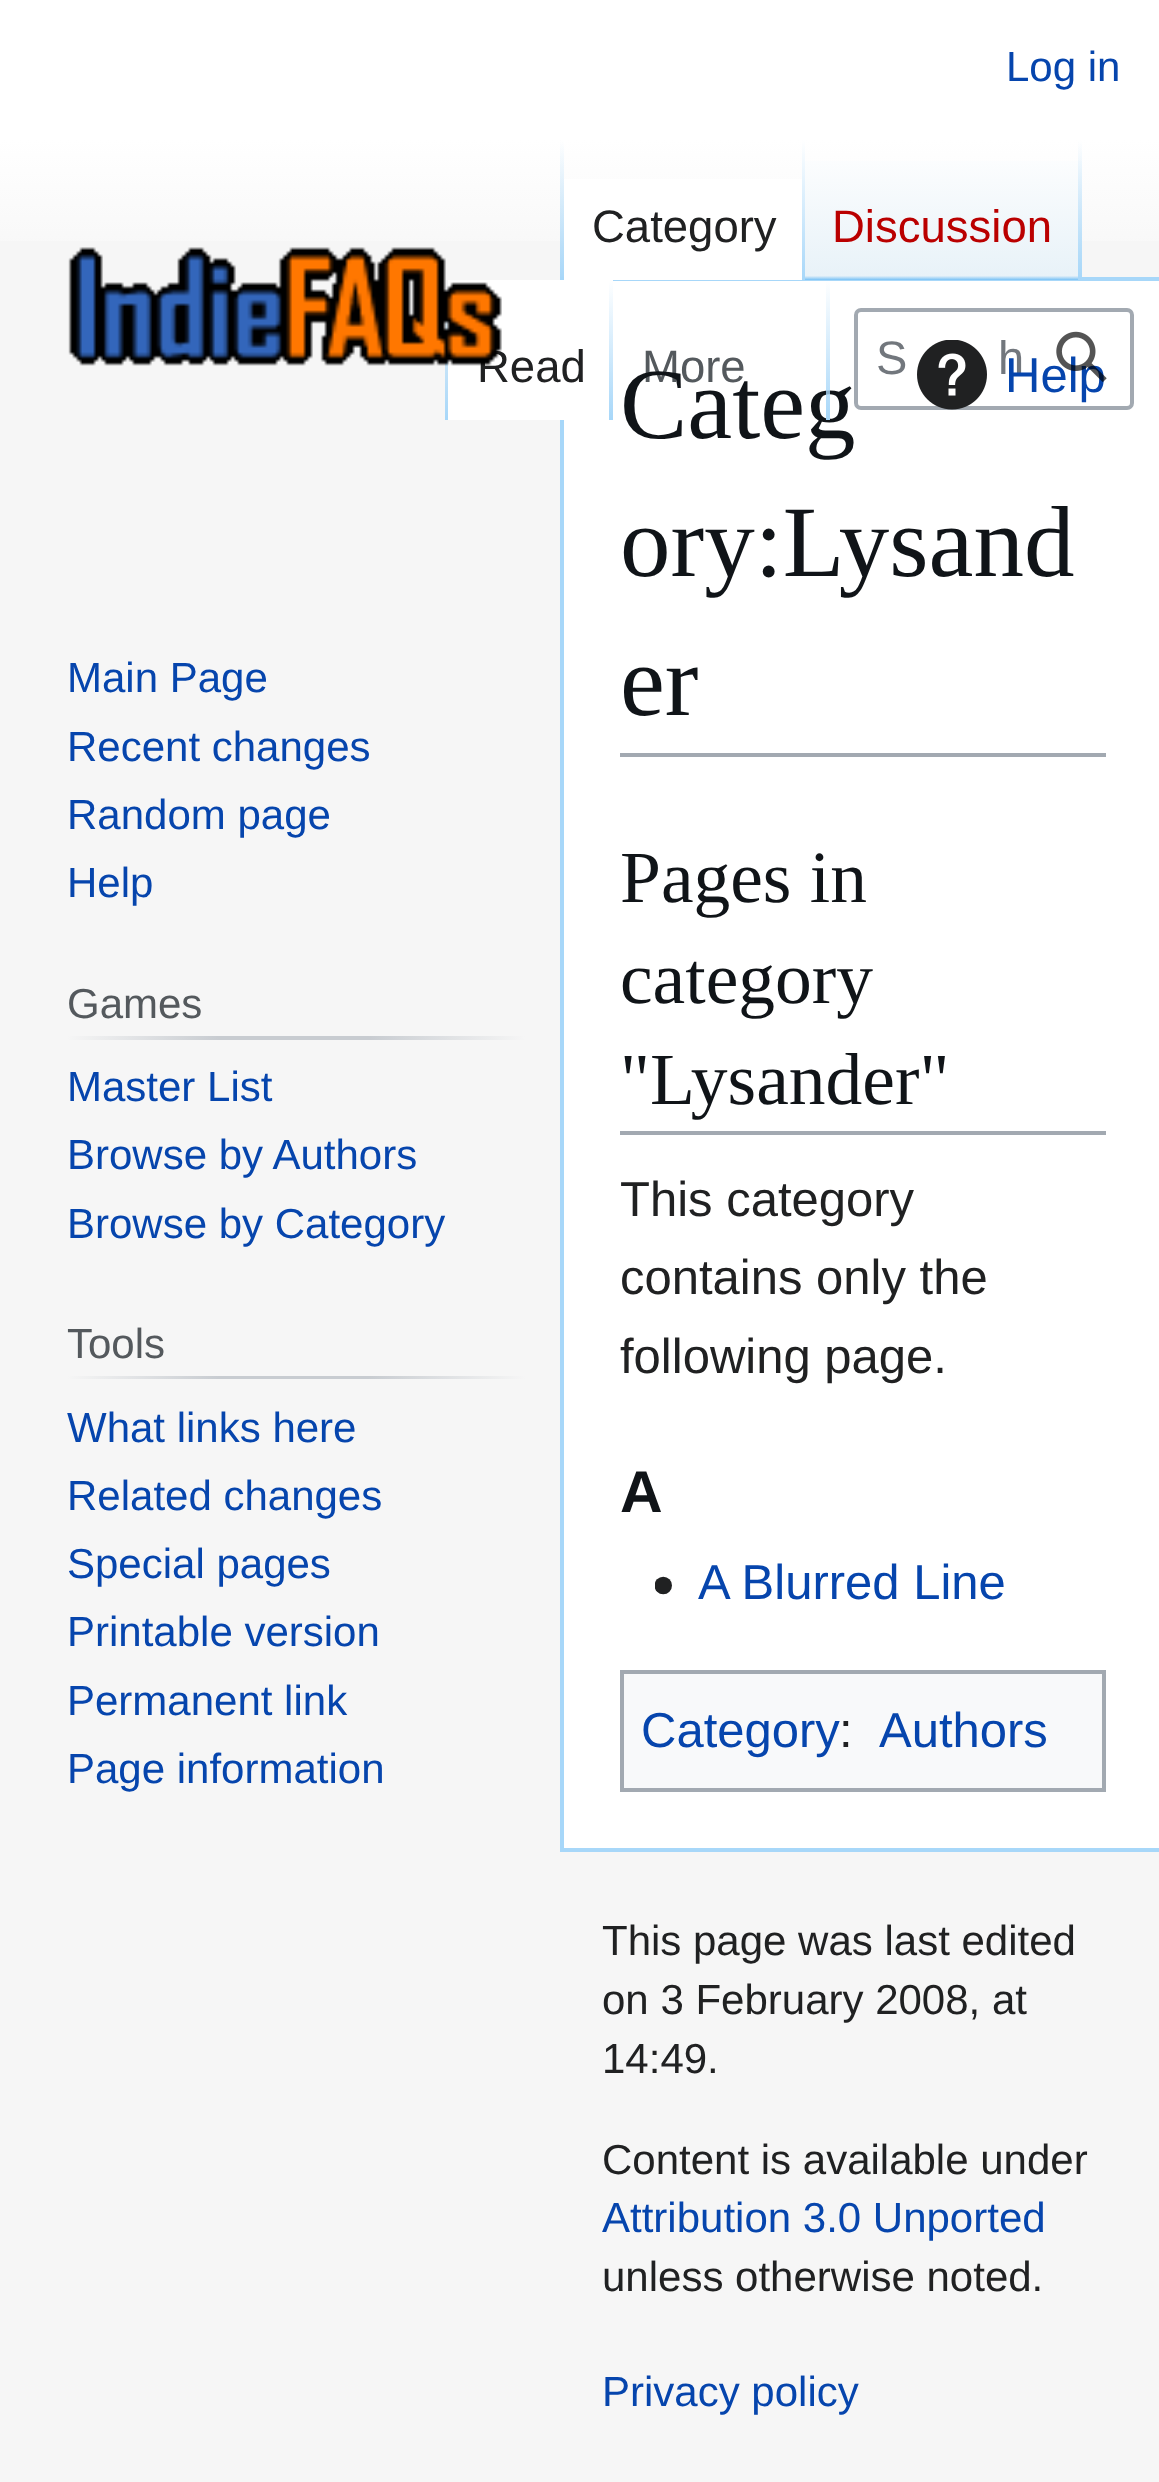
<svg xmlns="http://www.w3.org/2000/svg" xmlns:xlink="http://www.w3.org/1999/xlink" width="1159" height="2482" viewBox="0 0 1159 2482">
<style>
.cls-1{font:42px Liberation Sans;fill:#0645ad}
.cls-2{font:45.5px Liberation Sans;fill:#202122}
.cls-3{font:45.5px Liberation Sans;fill:#ba0000}
.cls-4{font:45.5px Liberation Sans;fill:#54595d}
.cls-5{font:47px Liberation Sans;fill:#72777d}
.cls-6{font:42px Liberation Sans;fill:#54595d}
.cls-7{font:49px Liberation Sans;fill:#0645ad}
.cls-8{font:101px Liberation Serif;fill:#101418}
.cls-9{font:73.5px Liberation Serif;fill:#101418}
.cls-10{font:49px Liberation Sans;fill:#202122}
.cls-11{font:bold 59px Liberation Sans;fill:#101418}
.cls-12{font:42px Liberation Sans;fill:#202122}
</style>
<defs>
<linearGradient id="g1" gradientUnits="userSpaceOnUse" x1="581" y1="0" x2="581" y2="280"><stop offset="0.5" stop-color="#ffffff"/><stop offset="1" stop-color="#f6f6f6"/></linearGradient>
<linearGradient id="g2" gradientUnits="userSpaceOnUse" x1="562" y1="140" x2="562" y2="280"><stop offset="0" stop-color="#a7d7f9" stop-opacity="0"/><stop offset="1" stop-color="#a7d7f9"/></linearGradient>
<linearGradient id="g3" gradientUnits="userSpaceOnUse" x1="803" y1="140" x2="803" y2="280"><stop offset="0" stop-color="#ffffff"/><stop offset="1" stop-color="#a7d7f9"/></linearGradient>
<linearGradient id="g4" gradientUnits="userSpaceOnUse" x1="943" y1="280" x2="943" y2="140"><stop offset="0" stop-color="#77c1f6"/><stop offset="0.03" stop-color="#e8f2f8"/><stop offset="1" stop-color="#ffffff"/></linearGradient>
<linearGradient id="g5" gradientUnits="userSpaceOnUse" x1="1080" y1="140" x2="1080" y2="280"><stop offset="0" stop-color="#a7d7f9" stop-opacity="0"/><stop offset="1" stop-color="#a7d7f9"/></linearGradient>
<linearGradient id="g6" gradientUnits="userSpaceOnUse" x1="446" y1="280" x2="446" y2="420"><stop offset="0" stop-color="#f6f6f6"/><stop offset="1" stop-color="#a7d7f9"/></linearGradient>
<linearGradient id="g7" gradientUnits="userSpaceOnUse" x1="611" y1="280" x2="611" y2="420"><stop offset="0" stop-color="#ffffff"/><stop offset="1" stop-color="#a7d7f9"/></linearGradient>
<linearGradient id="g8" gradientUnits="userSpaceOnUse" x1="67" y1="1038" x2="525" y2="1038"><stop offset="0" stop-color="#f6f6f6"/><stop offset="0.33" stop-color="#c8ccd1"/><stop offset="0.66" stop-color="#c8ccd1"/><stop offset="1" stop-color="#f6f6f6"/></linearGradient>
<linearGradient id="g9" gradientUnits="userSpaceOnUse" x1="67" y1="1377" x2="525" y2="1377"><stop offset="0" stop-color="#f6f6f6"/><stop offset="0.33" stop-color="#c8ccd1"/><stop offset="0.66" stop-color="#c8ccd1"/><stop offset="1" stop-color="#f6f6f6"/></linearGradient>
<linearGradient id="g10" gradientUnits="userSpaceOnUse" x1="828" y1="280" x2="828" y2="420"><stop offset="0" stop-color="#a7d7f9" stop-opacity="0"/><stop offset="1" stop-color="#a7d7f9"/></linearGradient>
</defs>
<rect width="100%" height="100%" fill="#f6f6f6"/>
<rect fill="url(#g1)" x="0" y="0" width="1159" height="241"/>
<rect fill="#a7d7f9" x="560" y="1848" width="599" height="4"/>
<rect fill="#a7d7f9" x="560" y="277" width="4" height="1575"/>
<rect fill="url(#g2)" x="560" y="140" width="4" height="140"/>
<rect fill="#a7d7f9" x="613" y="277" width="546" height="4"/>
<rect fill="#ffffff" x="564" y="179" width="238" height="101"/>
<rect fill="url(#g3)" x="802" y="140" width="3" height="140"/>
<rect fill="url(#g4)" x="805" y="161" width="277" height="119"/>
<rect fill="url(#g5)" x="1078" y="140" width="4" height="140"/>
<rect fill="url(#g6)" x="445" y="280" width="3" height="140"/>
<rect fill="#ffffff" x="564" y="281" width="595" height="1567"/>
<rect fill="#ffffff" x="448" y="280" width="161" height="140"/>
<rect fill="url(#g7)" x="609" y="280" width="4" height="140"/>
<rect fill="none" stroke="#a2a9b1" stroke-width="4" x="856" y="310" width="276" height="98" rx="5"/>
<rect fill="url(#g8)" x="67" y="1036" width="458" height="4"/>
<rect fill="url(#g9)" x="67" y="1376" width="458" height="3"/>
<image xlink:href="image2.png" x="917" y="340" width="70" height="70"/>
<rect fill="#a2a9b1" x="620" y="753" width="486" height="4"/>
<rect fill="#a2a9b1" x="620" y="1131" width="486" height="4"/>
<image xlink:href="image3.png" x="655" y="1576" width="17" height="19"/>
<rect fill="#f8f9fa" stroke="#a2a9b1" stroke-width="4" x="622" y="1672" width="482" height="118"/>
<text class="cls-1" x="1006" y="81">Log in</text>
<text class="cls-2" x="592" y="242">Category</text>
<text class="cls-3" x="832" y="242">Discussion</text>
<text class="cls-2" x="477" y="382">Read</text>
<text class="cls-4" x="642" y="382">More</text>
<text class="cls-5" x="876" y="374">S</text>
<text class="cls-5" x="998" y="374">h</text>
<image xlink:href="image1.png" x="68" y="247" width="434" height="119"/>
<text class="cls-1"><tspan x="67" y="692">Main Page</tspan><tspan x="67" y="761">Recent changes</tspan><tspan x="67" y="829">Random page</tspan><tspan x="67" y="897">Help</tspan></text>
<text class="cls-6" x="67" y="1018">Games</text>
<text class="cls-1"><tspan x="67" y="1101">Master List</tspan><tspan x="67" y="1169">Browse by Authors</tspan><tspan x="67" y="1238">Browse by Category</tspan></text>
<text class="cls-6" x="67" y="1358">Tools</text>
<text class="cls-1"><tspan x="67" y="1442">What links here</tspan><tspan x="67" y="1510">Related changes</tspan><tspan x="67" y="1578">Special pages</tspan><tspan x="67" y="1646">Printable version</tspan><tspan x="67" y="1715">Permanent link</tspan><tspan x="67" y="1783">Page information</tspan></text>
<text class="cls-7" x="1005" y="392">Help</text>
<image xlink:href="image0.png" x="1056" y="331" width="51" height="52"/>
<text class="cls-8" x="620" y="438">Categ</text>
<rect fill="url(#g10)" x="826" y="280" width="4" height="140"/>
<text class="cls-8"><tspan x="620" y="576">ory:Lysand</tspan><tspan x="620" y="715">er</tspan></text>
<text class="cls-9"><tspan x="620" y="902">Pages in</tspan><tspan x="620" y="1003">category</tspan><tspan x="620" y="1104">"Lysander"</tspan></text>
<text class="cls-10"><tspan x="620" y="1216">This category</tspan><tspan x="620" y="1294">contains only the</tspan><tspan x="620" y="1373">following page.</tspan></text>
<text class="cls-11" x="620" y="1512">A</text>
<text class="cls-7" x="698" y="1599">A Blurred Line</text>
<text class="cls-7" x="641" y="1747">Category</text>
<text class="cls-10" x="839" y="1747">:</text>
<text class="cls-7" x="879" y="1747">Authors</text>
<text class="cls-12"><tspan x="602" y="1955">This page was last edited</tspan><tspan x="602" y="2014">on 3 February 2008, at</tspan><tspan x="602" y="2073">14:49.</tspan></text>
<text class="cls-12" x="602" y="2174">Content is available under</text>
<text class="cls-1" x="602" y="2232">Attribution 3.0 Unported</text>
<text class="cls-12" x="602" y="2291">unless otherwise noted.</text>
<text class="cls-1" x="602" y="2406">Privacy policy</text>
</svg>
